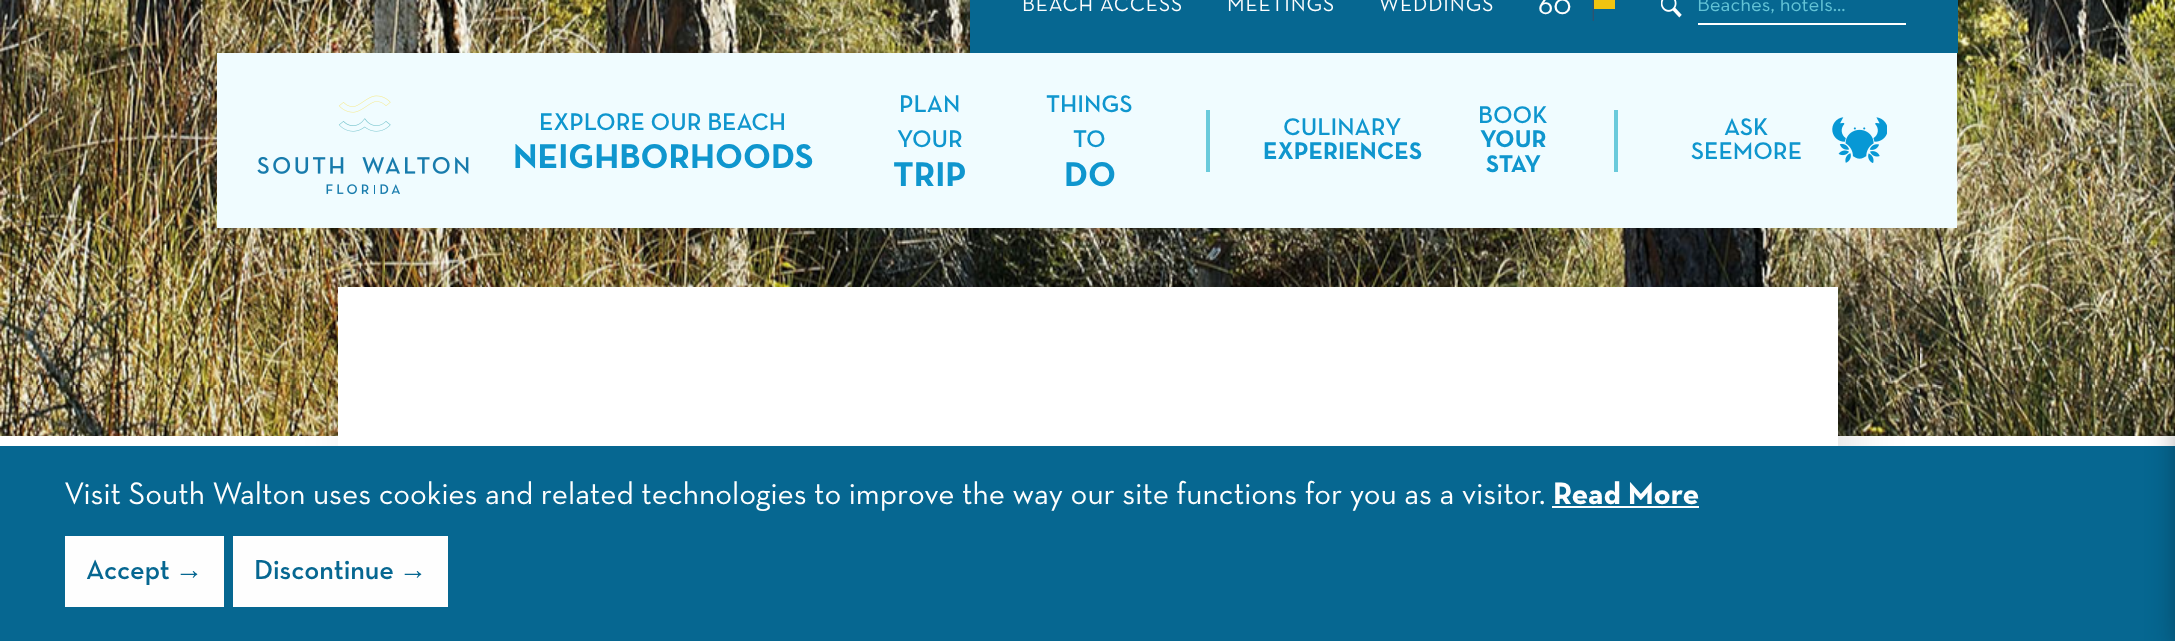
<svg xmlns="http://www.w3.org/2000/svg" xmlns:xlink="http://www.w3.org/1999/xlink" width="2175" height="641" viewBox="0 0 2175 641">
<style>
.cls-1{font:21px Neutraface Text;letter-spacing:0.9px;fill:#fefefe}
.cls-2{font:30px Neutraface Text;fill:#fefefe}
.cls-3{font:21px Neutraface Text;fill:#63c3d6}
.cls-4{font:600 24.5px Neutraface Text;fill:#0f96ce}
.cls-5{font:bold 35px Neutraface Text;fill:#0f96ce}
.cls-6{font:bold 24.5px Neutraface Text;fill:#0f96ce}
.cls-7{font:31.5px Neutraface Text;fill:#fefefe}
.cls-8{font:bold 31.5px Neutraface Text;fill:#fefefe}
.cls-9{font:600 28px Neutraface Text;fill:#066791}
.cls-10{font:bold 28px Liberation Sans;fill:#066791}
</style>
<rect width="100%" height="100%" fill="#ffffff"/>
<image xlink:href="image0.png" x="0" y="0" width="2175" height="436"/>
<rect fill="#066791" x="970" y="0" width="988" height="53"/>
<image xlink:href="image1.png" x="1592" y="0" width="23" height="21"/>
<image xlink:href="image2.png" x="1661" y="0" width="21" height="18"/>
<rect fill="#ffffff" x="1696" y="23" width="210" height="2"/>
<rect fill="#066791" x="1696" y="23" width="2" height="2"/>
<rect fill="#000000" fill-opacity="0.1" filter="blur(26px)" x="355" y="305" width="1500" height="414"/>
<rect fill="#f0fcff" x="217" y="53" width="1740" height="175"/>
<image xlink:href="image3.png" x="257" y="95" width="212" height="100"/>
<rect fill="#6acadb" x="1206" y="110" width="4" height="62"/>
<rect fill="#6acadb" x="1614" y="110" width="4" height="62"/>
<image xlink:href="image4.png" x="1832" y="117" width="55" height="46"/>
<rect fill="#ffffff" x="338" y="287" width="1500" height="159"/>
<rect fill="#066791" x="0" y="446" width="2175" height="195"/>
<rect fill="#fefefe" x="1552" y="506" width="147" height="2"/>
<rect fill="#fefefe" x="65" y="536" width="159" height="71"/>
<rect fill="#fefefe" x="233" y="536" width="215" height="71"/>
<rect fill="#000000" fill-opacity="0.5" filter="blur(17.5px)" x="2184" y="9" width="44" height="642"/>
<text class="cls-1" x="1022" y="11">BEACH ACCESS</text>
<text class="cls-1" x="1227" y="11">MEETINGS</text>
<text class="cls-1" x="1379" y="11">WEDDINGS</text>
<text class="cls-2" x="1538" y="14">60</text>
<text class="cls-3" x="1697" y="11">Beaches, hotels...</text>
<text class="cls-4" x="539" y="130">EXPLORE OUR BEACH</text>
<text class="cls-5" x="513" y="168">NEIGHBORHOODS</text>
<text class="cls-4" x="899" y="112">PLAN</text>
<text class="cls-4" x="897" y="147">YOUR</text>
<text class="cls-5" x="893" y="186">TRIP</text>
<text class="cls-4" x="1046" y="112">THINGS</text>
<text class="cls-4" x="1073" y="147">TO</text>
<text class="cls-5" x="1064" y="186">DO</text>
<text class="cls-4" x="1283" y="135">CULINARY</text>
<text class="cls-6" x="1263" y="159">EXPERIENCES</text>
<text class="cls-4" x="1478" y="123">BOOK</text>
<text class="cls-6" x="1480" y="147">YOUR</text>
<text class="cls-6" x="1486" y="172">STAY</text>
<text class="cls-4" x="1724" y="135">ASK</text>
<text class="cls-4" x="1691" y="159">SEEMORE</text>
<text class="cls-7" x="64" y="504">Visit South Walton uses cookies and related technologies to improve the way our site functions for you as a visitor.</text>
<text class="cls-8" x="1553" y="504">Read More</text>
<text class="cls-9" x="86" y="579">Accept</text>
<text class="cls-10" x="175" y="579">→</text>
<text class="cls-9" x="254" y="579">Discontinue</text>
<text class="cls-10" x="399" y="579">→</text>
</svg>
